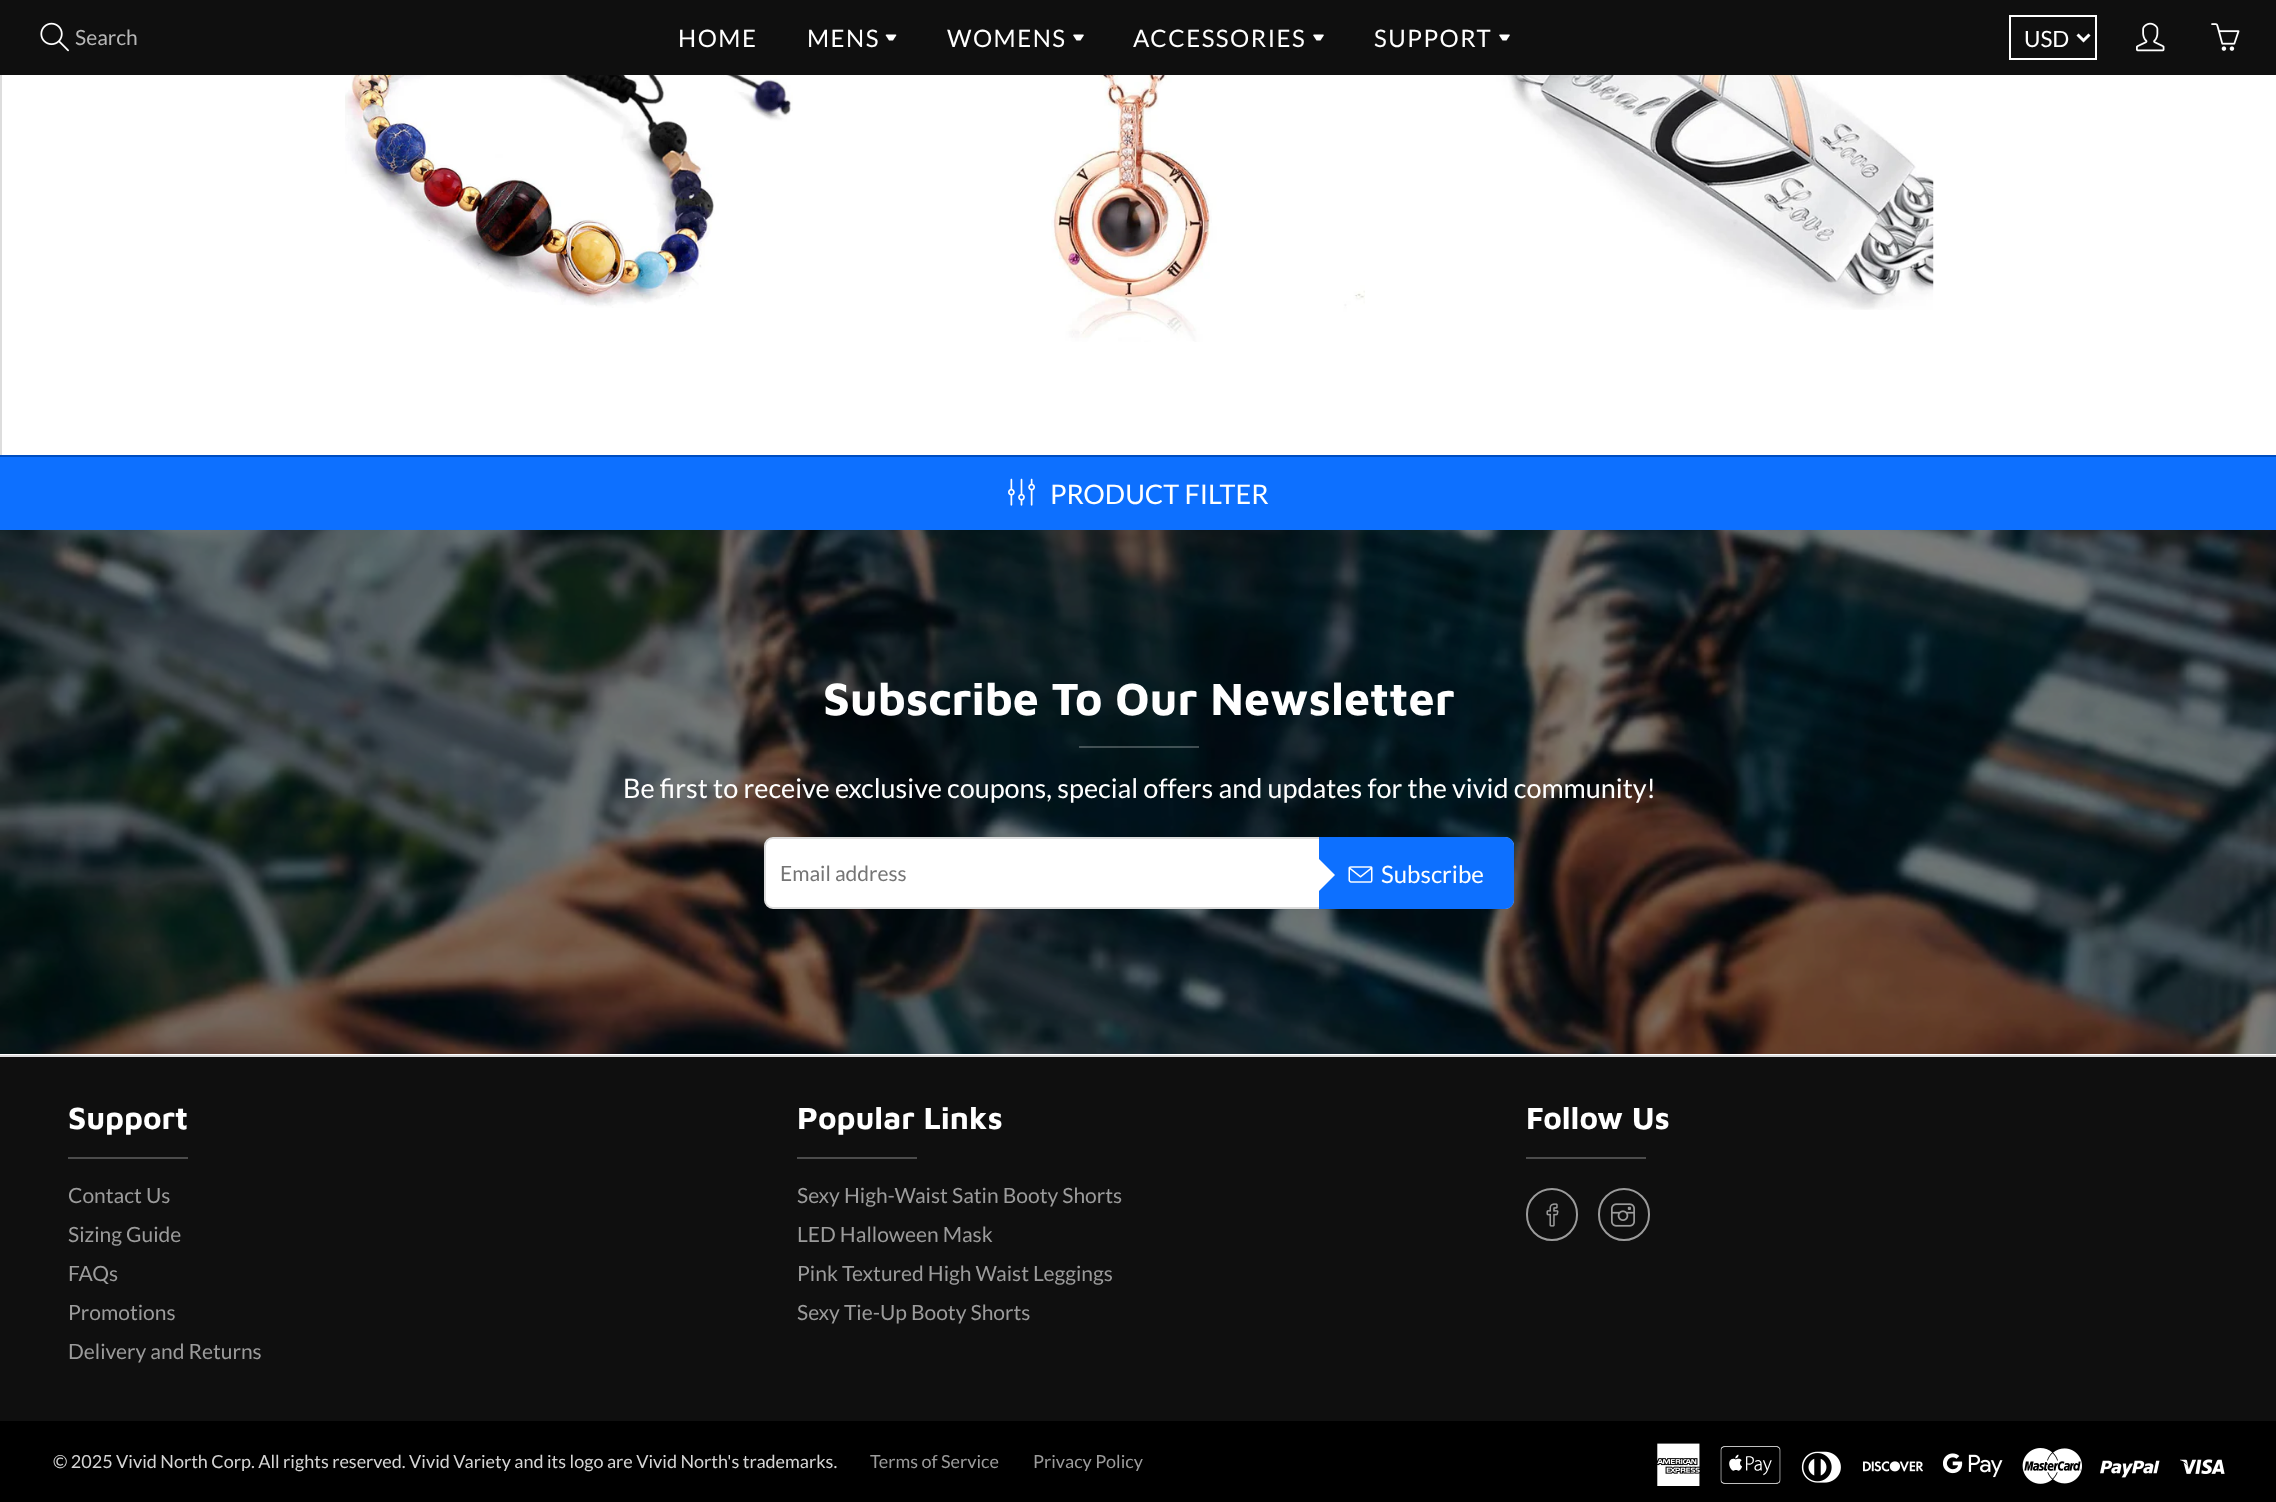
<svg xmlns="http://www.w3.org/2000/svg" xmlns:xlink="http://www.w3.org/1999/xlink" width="2276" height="1502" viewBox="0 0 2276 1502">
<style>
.cls-1{font:21px Lato;fill:#b7b7b7}
.cls-2{font:24px Lato;letter-spacing:1.5px;fill:#ffffff}
.cls-3{font:22.5px Lato;fill:#ffffff}
.cls-4{font:27px Lato;fill:#ffffff}
.cls-5{font:bold 46.5px Maven Pro;fill:#ffffff}
.cls-6{font:21px Lato;fill:#757575}
.cls-7{font:24px Lato;fill:#ffffff}
.cls-8{font:bold 31.5px Maven Pro;fill:#ffffff}
.cls-9{font:21px Lato;fill:#9b9b9b}
.cls-10{font:18px Lato;fill:#d5d5d5}
.cls-11{font:18px Lato;fill:#9b9b9b}
</style>
<rect width="100%" height="100%" fill="#ffffff"/>
<rect fill="#0f0f0f" x="0" y="0" width="2276" height="75"/>
<image xlink:href="image0.png" x="40" y="22" width="29" height="30"/>
<path fill="#ffffff" d="M886.5 34.5L885.5 35L889 40.5H893L896.5 35C896 34.5 895.5 34.5 894 34.5Z"/>
<path fill="#ffffff" d="M1074 34.5L1073 35L1076.5 40.5H1080.5L1084 35C1083.5 34.5 1083 34.5 1081.5 34.5Z"/>
<path fill="#ffffff" d="M1314 34.5L1313 35L1316.5 40.5H1320.5L1324 35C1323.5 34.5 1323 34.5 1321.5 34.5Z"/>
<path fill="#ffffff" d="M1500 34.5L1499 35L1502.5 40.5H1506.5L1510 35C1509.5 34.5 1509 34.5 1507.5 34.5Z"/>
<rect fill="none" stroke="#ffffff" stroke-width="2" x="2010" y="16" width="86" height="43"/>
<path fill="none" stroke="#ffffff" stroke-width="3" d="M2077.5 34.5L2083.5 40.5L2089.5 34.5"/>
<image xlink:href="image1.png" x="2136" y="22" width="29" height="30"/>
<image xlink:href="image2.png" x="2211" y="23" width="29" height="28"/>
<rect fill="#dddddd" x="0" y="75" width="2" height="380"/>
<image xlink:href="image3.png" x="345" y="75" width="448" height="233"/>
<image xlink:href="image4.png" x="1051" y="75" width="314" height="267"/>
<image xlink:href="image5.png" x="1486" y="75" width="448" height="235"/>
<rect fill="#0d70ff" x="0" y="457" width="2276" height="73"/>
<rect fill="#004ec0" x="0" y="455" width="2276" height="2"/>
<image xlink:href="image6.png" x="1008" y="478" width="27" height="28"/>
<image xlink:href="image7.png" x="0" y="530" width="2276" height="524"/>
<rect fill="#ffffff" fill-opacity="0.25" x="1079" y="746" width="120" height="2"/>
<rect fill="#ffffff" stroke="#dddddd" stroke-width="2" x="765" y="838" width="748" height="70" rx="8"/>
<path fill="#0d70ff" d="M1319 837H1505C1510 837 1514 841 1514 846V900C1514 905 1510 909 1505 909H1319Z"/>
<path fill="#ffffff" d="M1317 857L1335 875L1317 893L1299 875Z"/>
<image xlink:href="image8.png" x="1348" y="866" width="25" height="17"/>
<rect fill="#0f0f0f" x="0" y="1057" width="2276" height="364"/>
<rect fill="#dddddd" x="0" y="1055" width="2276" height="2"/>
<rect fill="#4b4b4b" x="68" y="1157" width="120" height="2"/>
<rect fill="#4b4b4b" x="797" y="1157" width="120" height="2"/>
<rect fill="#4b4b4b" x="1526" y="1157" width="120" height="2"/>
<rect fill="none" stroke="#9b9b9b" stroke-width="2" x="1527" y="1189" width="50" height="51" rx="25"/>
<image xlink:href="image9.png" x="1546" y="1203" width="13" height="24"/>
<rect fill="none" stroke="#9b9b9b" stroke-width="2" x="1599" y="1189" width="50" height="51" rx="25"/>
<image xlink:href="image10.png" x="1611" y="1203" width="24" height="24"/>
<rect fill="#000000" x="0" y="1421" width="2276" height="81"/>
<image xlink:href="image11.png" x="1657" y="1443" width="43" height="43"/>
<image xlink:href="image12.png" x="1720" y="1446" width="61" height="38"/>
<image xlink:href="image13.png" x="1801" y="1451" width="40" height="32"/>
<image xlink:href="image14.png" x="1863" y="1461" width="60" height="11"/>
<image xlink:href="image15.png" x="1943" y="1453" width="60" height="25"/>
<image xlink:href="image16.png" x="2022" y="1448" width="60" height="36"/>
<image xlink:href="image17.png" x="2100" y="1460" width="60" height="18"/>
<image xlink:href="image18.png" x="2180" y="1459" width="45" height="15"/>
<text class="cls-1" x="75" y="45">Search</text>
<text class="cls-2" x="678" y="47">HOME</text>
<text class="cls-2" x="807" y="47">MENS</text>
<text class="cls-2" x="947" y="47">WOMENS</text>
<text class="cls-2" x="1133" y="47">ACCESSORIES</text>
<text class="cls-2" x="1374" y="47">SUPPORT</text>
<text class="cls-3" x="2024" y="47">USD</text>
<text class="cls-4" x="1050" y="504">PRODUCT FILTER</text>
<text class="cls-5" x="823" y="715">Subscribe To Our Newsletter</text>
<text class="cls-4" x="623" y="798">Be first to receive exclusive coupons, special offers and updates for the vivid community!</text>
<text class="cls-6" x="780" y="881">Email address</text>
<text class="cls-7" x="1381" y="883">Subscribe</text>
<text class="cls-8" x="68" y="1129">Support</text>
<text class="cls-9"><tspan x="68" y="1203">Contact Us</tspan><tspan x="68" y="1242">Sizing Guide</tspan><tspan x="68" y="1281">FAQs</tspan><tspan x="68" y="1320">Promotions</tspan><tspan x="68" y="1359">Delivery and Returns</tspan></text>
<text class="cls-8" x="797" y="1129">Popular Links</text>
<text class="cls-9"><tspan x="797" y="1203">Sexy High-Waist Satin Booty Shorts</tspan><tspan x="797" y="1242">LED Halloween Mask</tspan><tspan x="797" y="1281">Pink Textured High Waist Leggings</tspan><tspan x="797" y="1320">Sexy Tie-Up Booty Shorts</tspan></text>
<text class="cls-8" x="1526" y="1129">Follow Us</text>
<text class="cls-10" x="53" y="1468">© 2025 Vivid North Corp. All rights reserved. Vivid Variety and its logo are Vivid North's trademarks.</text>
<text class="cls-11" x="870" y="1468">Terms of Service</text>
<text class="cls-11" x="1033" y="1468">Privacy Policy</text>
</svg>
